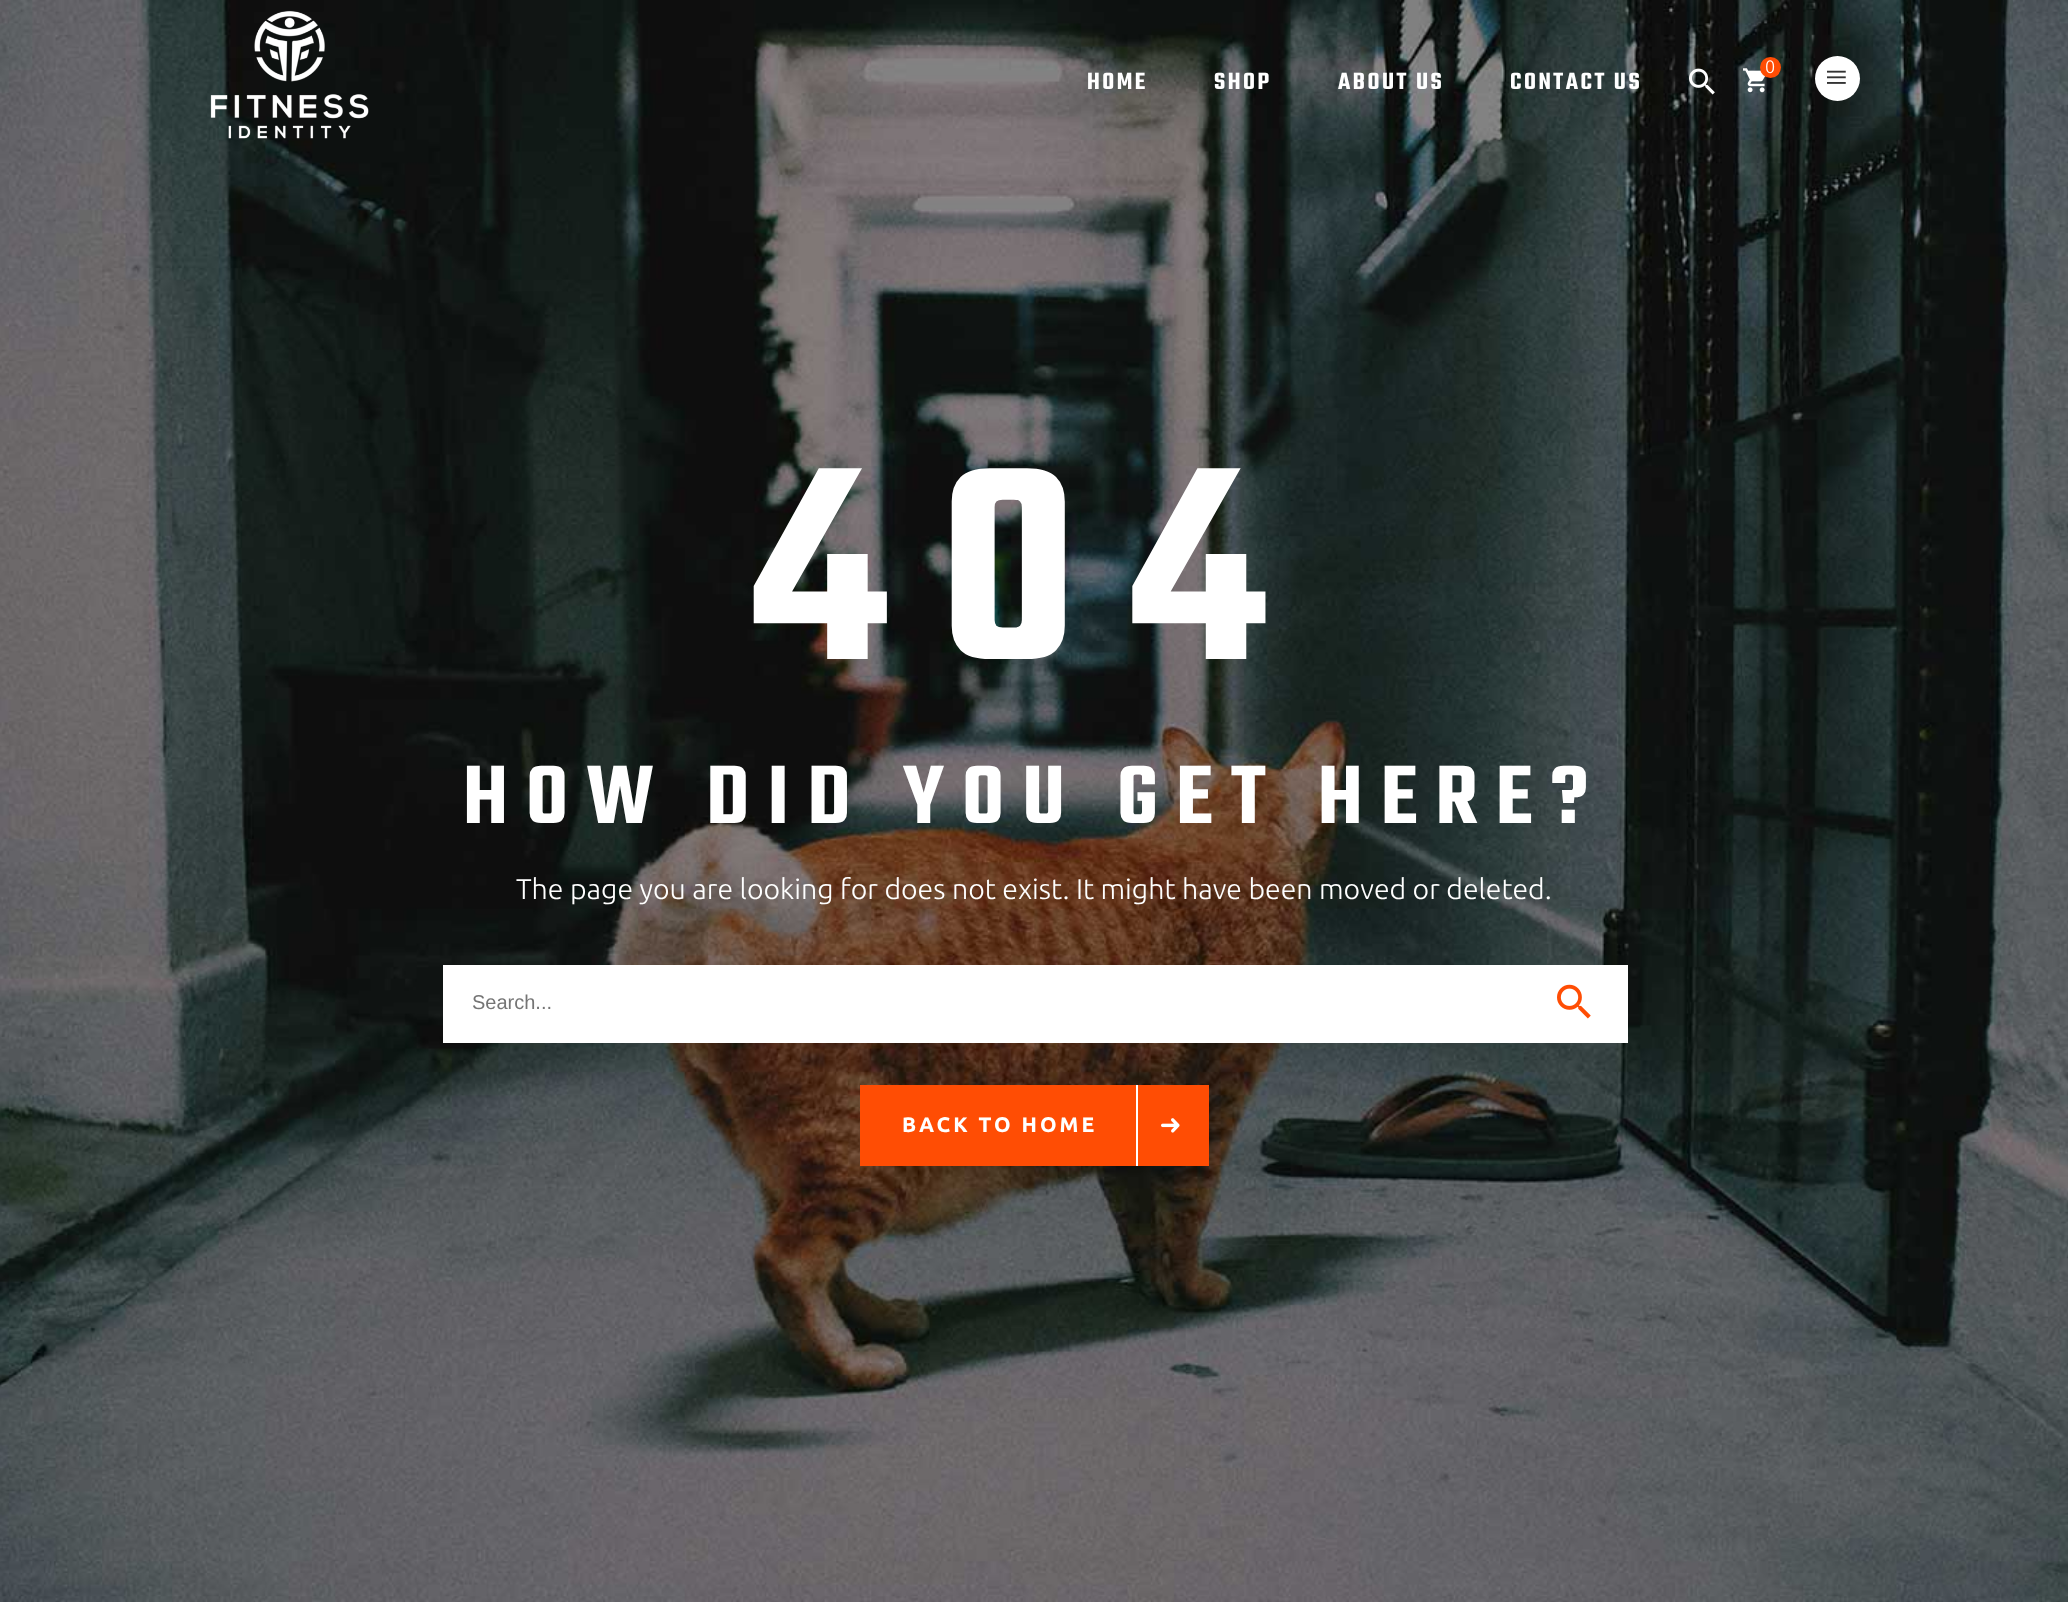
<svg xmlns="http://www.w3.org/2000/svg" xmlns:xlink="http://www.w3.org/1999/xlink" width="2068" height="1602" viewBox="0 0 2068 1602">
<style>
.cls-1{font:600 25.5px Teko;letter-spacing:2.5px;fill:#ffffff}
.cls-2{font:300 18px Ubuntu;fill:#ffffff}
.cls-3{font:600 300px Teko;letter-spacing:52.5px;fill:#ffffff}
.cls-4{font:600 90px Teko;letter-spacing:18px;fill:#ffffff}
.cls-5{font:300 28.5px Ubuntu;fill:#ffffff}
.cls-6{font:20px Liberation Sans;fill:#757575}
.cls-7{font:bold 21px Ubuntu;letter-spacing:3px;fill:#ffffff}
</style>
<rect width="100%" height="100%" fill="#ffffff"/>
<image xlink:href="image4.png" x="0" y="0" width="2068" height="1602"/>
<image xlink:href="image0.png" x="210" y="10" width="159" height="129"/>
<image xlink:href="image1.png" x="1689" y="68" width="26" height="27"/>
<image xlink:href="image2.png" x="1743" y="68" width="23" height="25"/>
<circle fill="#ff4d04" cx="1770.5" cy="67.5" r="10.5"/>
<circle fill="#ffffff" cx="1837.5" cy="78.5" r="22.5"/>
<image xlink:href="image3.png" x="1827" y="70" width="19" height="14"/>
<rect fill="#ffffff" x="443" y="965" width="1185" height="78"/>
<image xlink:href="image5.png" x="1557" y="984" width="34" height="35"/>
<rect fill="#ff4d04" x="860" y="1085" width="349" height="81"/>
<rect fill="#ffffff" x="1136" y="1085" width="2" height="81"/>
<image xlink:href="image6.png" x="1161" y="1118" width="19" height="15"/>
<text class="cls-1" x="1087" y="89">HOME</text>
<text class="cls-1" x="1214" y="89">SHOP</text>
<text class="cls-1" x="1338" y="89">ABOUT US</text>
<text class="cls-1" x="1510" y="89">CONTACT US</text>
<text class="cls-2" x="1765" y="73">0</text>
<text class="cls-3" x="751" y="659">404</text>
<text class="cls-4" x="463" y="823">HOW DID YOU GET HERE?</text>
<text class="cls-5" x="516" y="899">The page you are looking for does not exist. It might have been moved or deleted.</text>
<text class="cls-6" x="472" y="1009">Search...</text>
<text class="cls-7" x="902" y="1132">BACK TO HOME</text>
</svg>
